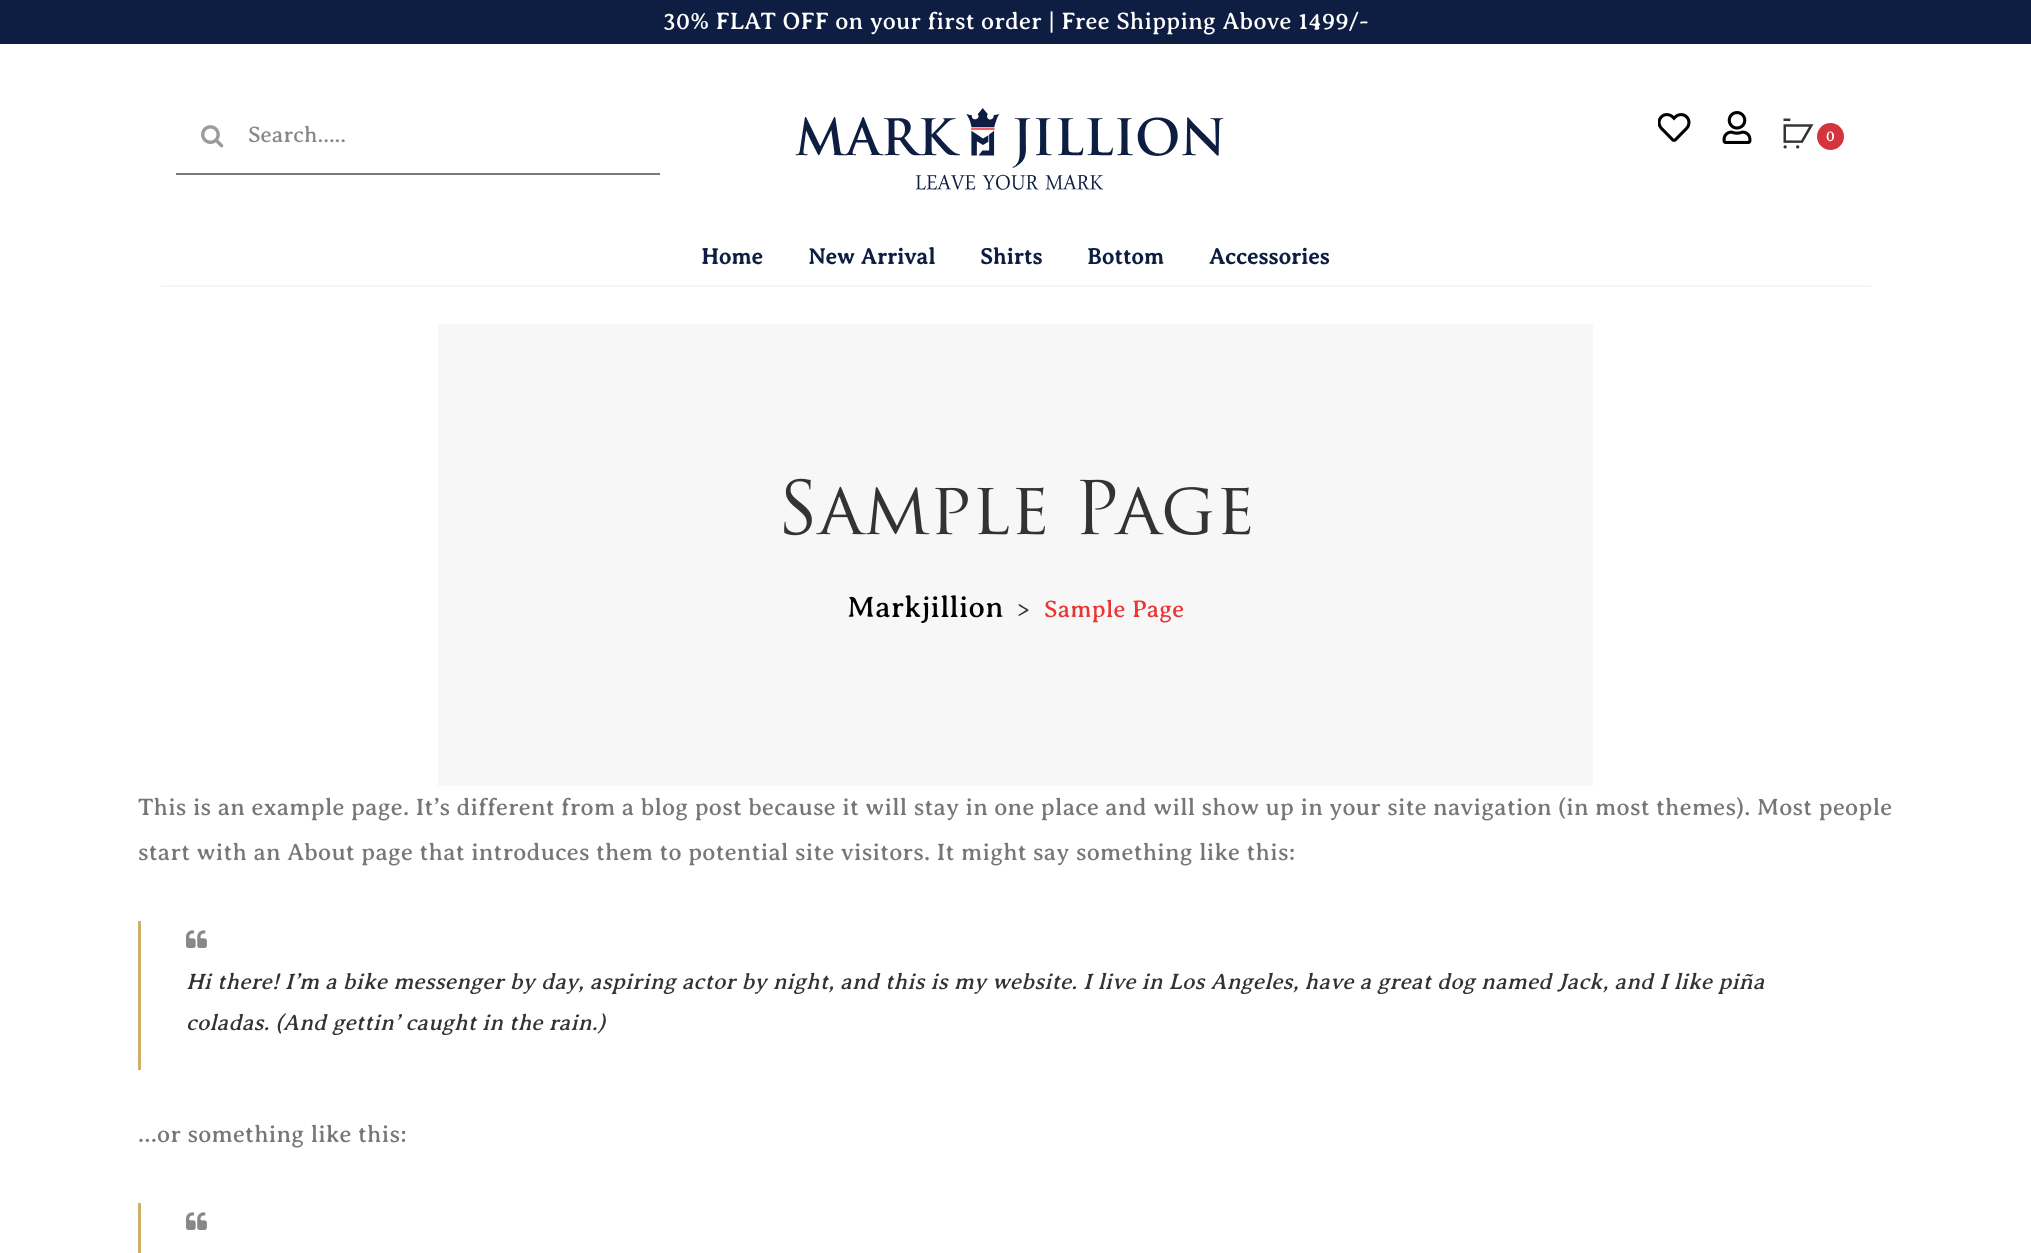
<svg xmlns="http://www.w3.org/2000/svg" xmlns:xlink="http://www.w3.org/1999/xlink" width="2031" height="1253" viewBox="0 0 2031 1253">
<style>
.cls-1{font:24px Averia Serif Libre;letter-spacing:0.2px;fill:#ffffff}
.cls-2{font:22.5px Averia Serif Libre;fill:#888888}
.cls-3{font:15px Averia Serif Libre;letter-spacing:0.2px;fill:#ffffff}
.cls-4{font:bold 22.5px Averia Serif Libre;letter-spacing:0.2px;fill:#0e1d42}
.cls-5{font:30px Averia Serif Libre;letter-spacing:0.2px;fill:#000000}
.cls-6{font:24px Averia Serif Libre;letter-spacing:0.2px;fill:#333333}
.cls-7{font:24px Averia Serif Libre;letter-spacing:0.2px;fill:#eb3434}
.cls-8{font:24px Averia Serif Libre;letter-spacing:0.2px;fill:#777777}
.cls-9{font:italic 22.5px Averia Serif Libre;letter-spacing:0.2px;fill:#333333}
</style>
<rect width="100%" height="100%" fill="#ffffff"/>
<rect fill="#0e1d42" x="0" y="0" width="2031" height="44"/>
<rect fill="#7a7a7a" x="176" y="173" width="484" height="2"/>
<image xlink:href="image0.png" x="201" y="125" width="23" height="23"/>
<image xlink:href="image1.png" x="795" y="108" width="429" height="82"/>
<image xlink:href="image2.png" x="1658" y="113" width="33" height="29"/>
<image xlink:href="image3.png" x="1722" y="111" width="30" height="33"/>
<image xlink:href="image4.png" x="1783" y="118" width="31" height="31"/>
<circle fill="#d4343c" cx="1830.5" cy="136.5" r="13.5"/>
<rect fill="#f5f5f5" x="161" y="285" width="1710" height="2"/>
<rect fill="#f7f7f7" x="438" y="324" width="1155" height="462"/>
<image xlink:href="image5.png" x="784" y="478" width="467" height="58"/>
<rect fill="#ceb06a" x="138" y="921" width="3" height="149"/>
<image xlink:href="image6.png" x="186" y="930" width="21" height="18"/>
<rect fill="#ceb06a" x="138" y="1203" width="3" height="50"/>
<image xlink:href="image6.png" x="186" y="1212" width="21" height="18"/>
<text class="cls-1" x="663" y="29">30% FLAT OFF on your first order | Free Shipping Above 1499/-</text>
<text class="cls-2" x="248" y="142">Search.....</text>
<text class="cls-3" x="1826" y="141">0</text>
<text class="cls-4" x="701" y="264">Home</text>
<text class="cls-4" x="808" y="264">New Arrival</text>
<text class="cls-4" x="980" y="264">Shirts</text>
<text class="cls-4" x="1087" y="264">Bottom</text>
<text class="cls-4" x="1209" y="264">Accessories</text>
<text class="cls-5" x="847" y="617">Markjillion</text>
<text class="cls-6" x="1017" y="617">&gt;</text>
<text class="cls-7" x="1044" y="617">Sample Page</text>
<text class="cls-8"><tspan x="138" y="815">This is an example page. It’s different from a blog post because it will stay in one place and will show up in your site navigation (in most themes). Most people</tspan><tspan x="138" y="860">start with an About page that introduces them to potential site visitors. It might say something like this:</tspan></text>
<text class="cls-9"><tspan x="186" y="989">Hi there! I’m a bike messenger by day, aspiring actor by night, and this is my website. I live in Los Angeles, have a great dog named Jack, and I like piña</tspan><tspan x="186" y="1030">coladas. (And gettin’ caught in the rain.)</tspan></text>
<text class="cls-8" x="138" y="1142">…or something like this:</text>
</svg>
